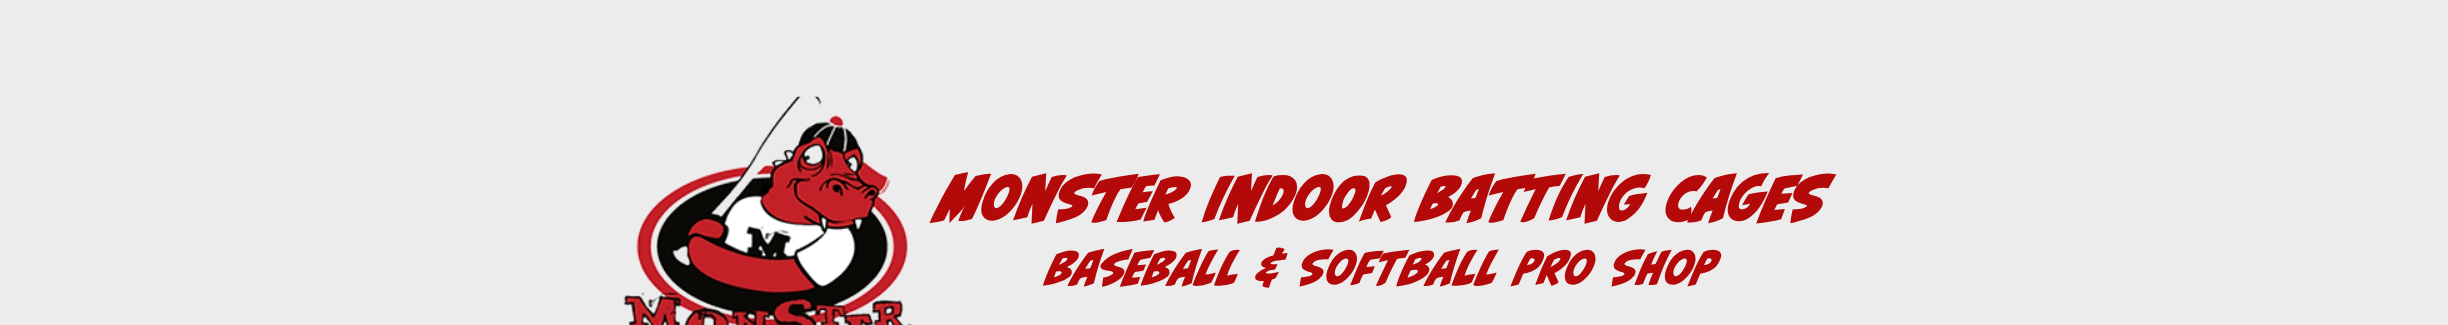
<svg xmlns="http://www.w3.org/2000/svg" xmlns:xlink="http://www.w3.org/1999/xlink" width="2448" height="325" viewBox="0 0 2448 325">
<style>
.cls-1{font:bold 56.25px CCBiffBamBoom;fill:#b30909}
.cls-2{font:43.75px CCBiffBamBoom;fill:#b30909}
</style>
<rect width="100%" height="100%" fill="#ececec"/>
<path fill="#ffffff" d="M866 246C866 281 832 309 790 309C748 309 714 281 714 246C714 212 748 184 790 184C832 184 866 212 866 246Z"/>
<image xlink:href="image0.png" x="623" y="96" width="290" height="229"/>
<text class="cls-1" x="940" y="221">Monster Indoor Batting Cages</text>
<text class="cls-2" x="1049" y="285">Baseball &amp; Softball Pro Shop</text>
</svg>
